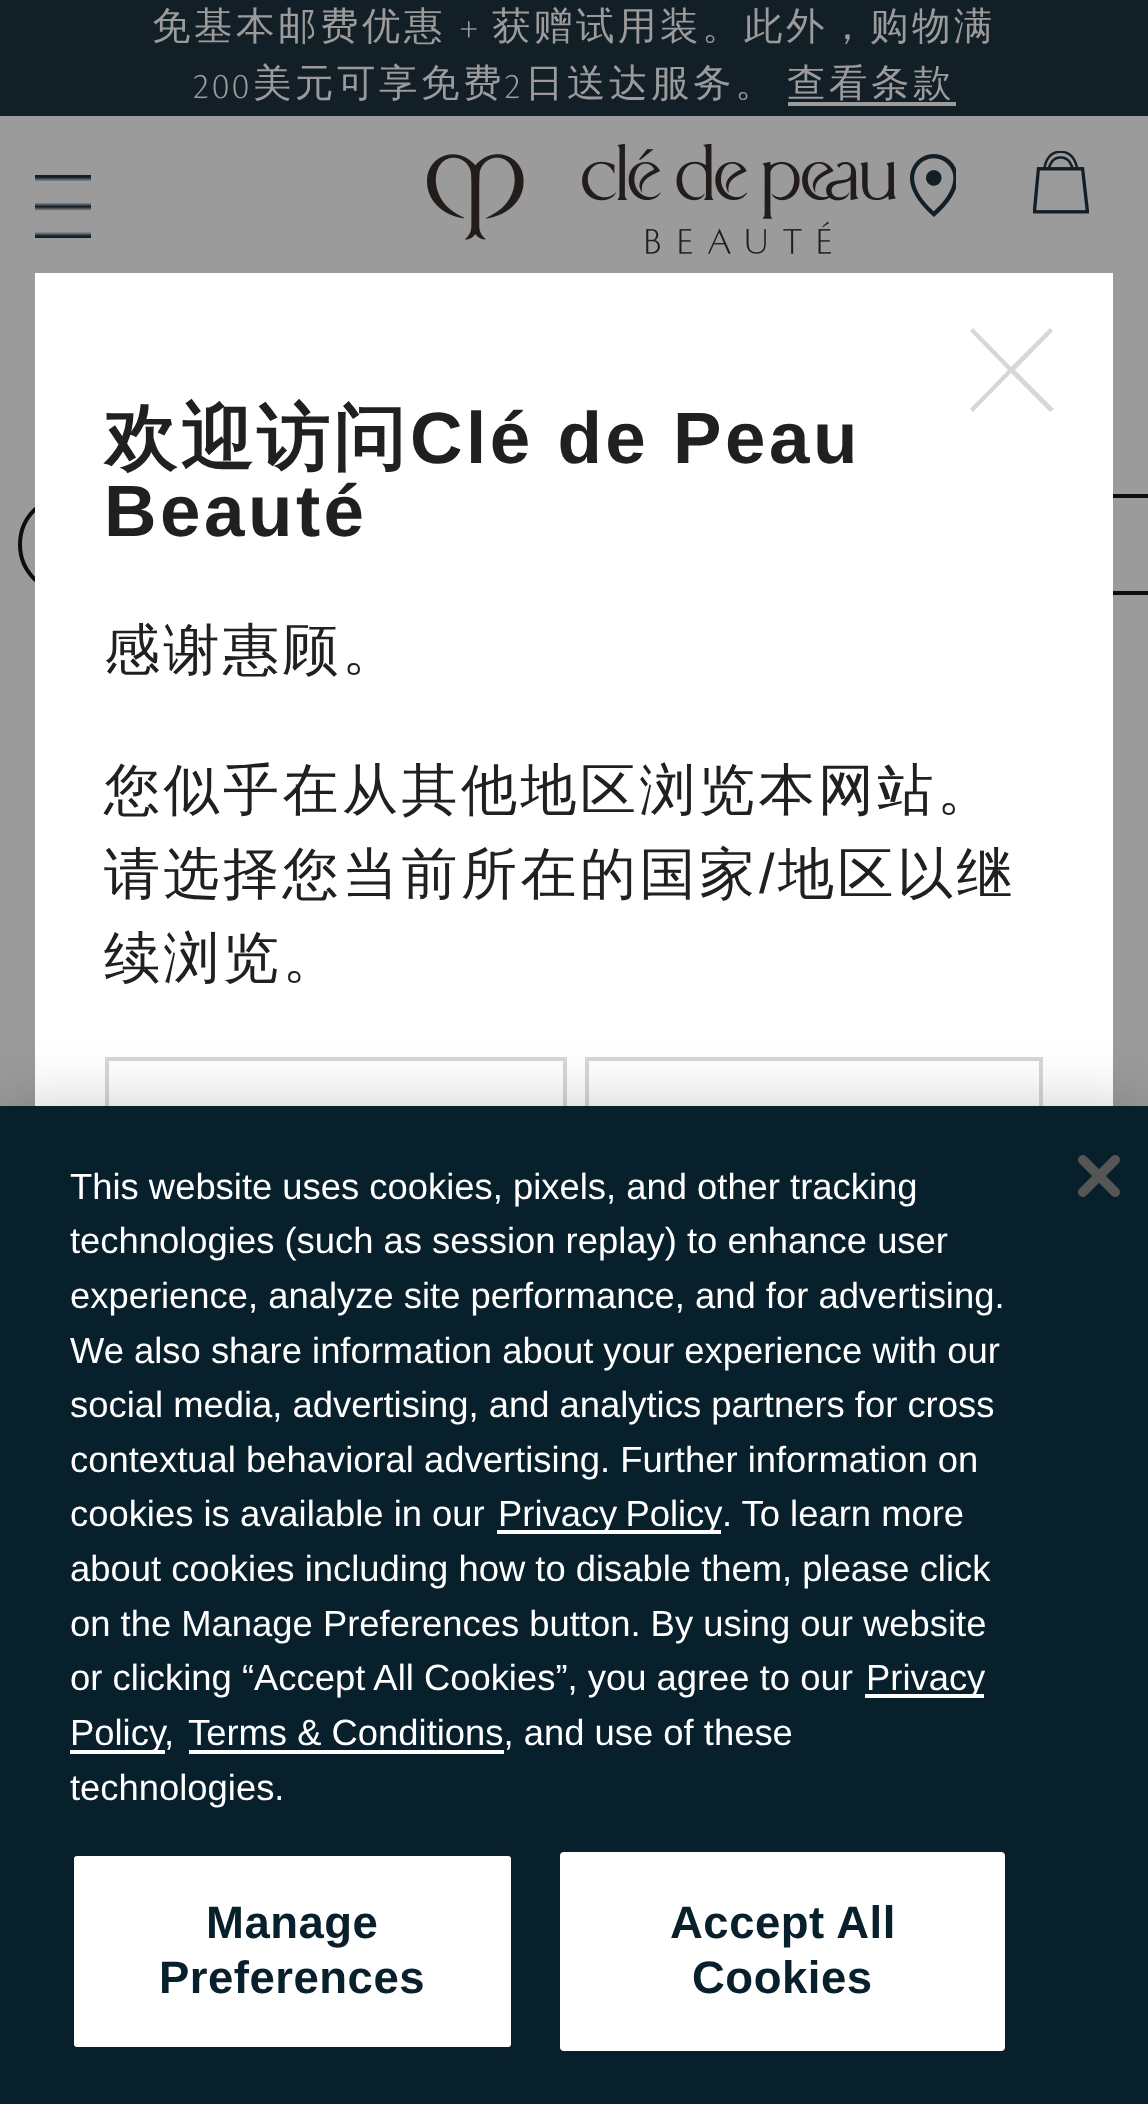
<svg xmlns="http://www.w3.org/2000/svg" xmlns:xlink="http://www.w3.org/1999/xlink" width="1148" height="2104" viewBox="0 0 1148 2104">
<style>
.cls-1{font:500 38.5px WenQuanYi Zen Hei;letter-spacing:3.5px;fill:#9b9b9b}
.cls-2{font:bold 72.75px WenQuanYi Zen Hei;letter-spacing:3.5px;fill:#202020}
.cls-3{font:bold 72.75px Liberation Sans;letter-spacing:3.5px;fill:#202020}
.cls-4{font:500 56px WenQuanYi Zen Hei;letter-spacing:3.5px;fill:#202020}
.cls-5{font:56px Liberation Sans;letter-spacing:3.5px;fill:#202020}
.cls-6{font:36.4px Liberation Sans;fill:#ffffff}
.cls-7{font:bold 45.5px Liberation Sans;letter-spacing:0.5px;fill:#081f2c}
</style>
<rect width="100%" height="100%" fill="#9b9b9b"/>
<rect fill="#131f27" x="0" y="0" width="1148" height="116"/>
<image xlink:href="image0.png" x="460" y="21" width="17" height="17"/>
<image xlink:href="image1.png" x="194" y="74" width="54" height="25"/>
<image xlink:href="image2.png" x="505" y="74" width="15" height="25"/>
<rect fill="#9b9b9b" x="788" y="102" width="168" height="4"/>
<image xlink:href="image3.png" x="35" y="175" width="56" height="63"/>
<image xlink:href="image4.png" x="427" y="144" width="469" height="110"/>
<image xlink:href="image5.png" x="910" y="154" width="46" height="63"/>
<image xlink:href="image6.png" x="1033" y="151" width="56" height="63"/>
<rect fill="none" stroke="#0e0e0e" stroke-width="4" x="20" y="496" width="388" height="97" rx="48.5"/>
<rect fill="none" stroke="#0e0e0e" stroke-width="4" x="769" y="496" width="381" height="97"/>
<rect fill="#ffffff" x="35" y="273" width="1078" height="833"/>
<path fill="#d7d7d7" d="M1054 409L1015 370L1053 331L1050 328L1011 367L973 328L970 331L1008 370L970 409L973 412L1011 373L1050 412Z"/>
<rect fill="none" stroke="#d7d7d7" stroke-width="4" x="107" y="1059" width="458" height="136"/>
<rect fill="none" stroke="#d7d7d7" stroke-width="4" x="587" y="1059" width="454" height="136"/>
<rect fill="#000000" fill-opacity="0.2" filter="blur(31.5px)" x="0" y="1106" width="1148" height="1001"/>
<rect fill="#081f2c" x="0" y="1106" width="1148" height="998"/>
<rect fill="#ffffff" x="497" y="1530" width="224" height="4"/>
<rect fill="#ffffff" x="865" y="1694" width="119" height="4"/>
<rect fill="#ffffff" x="70" y="1750" width="95" height="4"/>
<rect fill="#ffffff" x="189" y="1750" width="315" height="4"/>
<rect fill="#ffffff" stroke="#081f2c" stroke-width="4" x="72" y="1854" width="441" height="195" rx="5"/>
<rect fill="#ffffff" stroke="#ffffff" stroke-width="4" x="562" y="1854" width="441" height="195" rx="2"/>
<image xlink:href="image7.png" x="1078" y="1155" width="42" height="42"/>
<text class="cls-1" x="152" y="39">免基本邮费优惠</text>
<text class="cls-1" x="492" y="39">获赠试用装。此外，购物满</text>
<text class="cls-1" x="253" y="96">美元可享免费</text>
<text class="cls-1" x="525" y="96">日送达服务。</text>
<text class="cls-1" x="787" y="96">查看条款</text>
<text class="cls-2" x="104" y="463">欢迎访问</text>
<text class="cls-3" x="410" y="463">Clé de Peau</text>
<text class="cls-3" x="104" y="536">Beauté</text>
<text class="cls-4" x="104" y="669">感谢惠顾。</text>
<text class="cls-4"><tspan x="104" y="809">您似乎在从其他地区浏览本网站。</tspan><tspan x="104" y="893">请选择您当前所在的国家</tspan></text>
<text class="cls-5" x="759" y="893">/</text>
<text class="cls-4" x="778" y="893">地区以继</text>
<text class="cls-4" x="104" y="977">续浏览。</text>
<text class="cls-6"><tspan x="70" y="1199">This website uses cookies, pixels, and other tracking</tspan><tspan x="70" y="1253">technologies (such as session replay) to enhance user</tspan><tspan x="70" y="1308">experience, analyze site performance, and for advertising.</tspan><tspan x="70" y="1363">We also share information about your experience with our</tspan><tspan x="70" y="1417">social media, advertising, and analytics partners for cross</tspan><tspan x="70" y="1472">contextual behavioral advertising. Further information on</tspan><tspan x="70" y="1526">cookies is available in our</tspan></text>
<text class="cls-6" x="498" y="1526" word-spacing="-2">Privacy Policy</text>
<text class="cls-6" x="722" y="1526">. To learn more</text>
<text class="cls-6"><tspan x="70" y="1581">about cookies including how to disable them, please click</tspan><tspan x="70" y="1636">on the Manage Preferences button. By using our website</tspan><tspan x="70" y="1690">or clicking “Accept All Cookies”, you agree to our</tspan></text>
<text class="cls-6" x="866" y="1690">Privacy</text>
<text class="cls-6" x="70" y="1745">Policy</text>
<text class="cls-6" x="164" y="1745">,</text>
<text class="cls-6" x="188" y="1745">Terms &amp; Conditions, and use of these</text>
<text class="cls-6" x="70" y="1800">technologies.</text>
<text class="cls-7" x="206" y="1938">Manage</text>
<text class="cls-7" x="159" y="1993">Preferences</text>
<text class="cls-7" x="670" y="1938">Accept All</text>
<text class="cls-7" x="692" y="1993">Cookies</text>
</svg>
